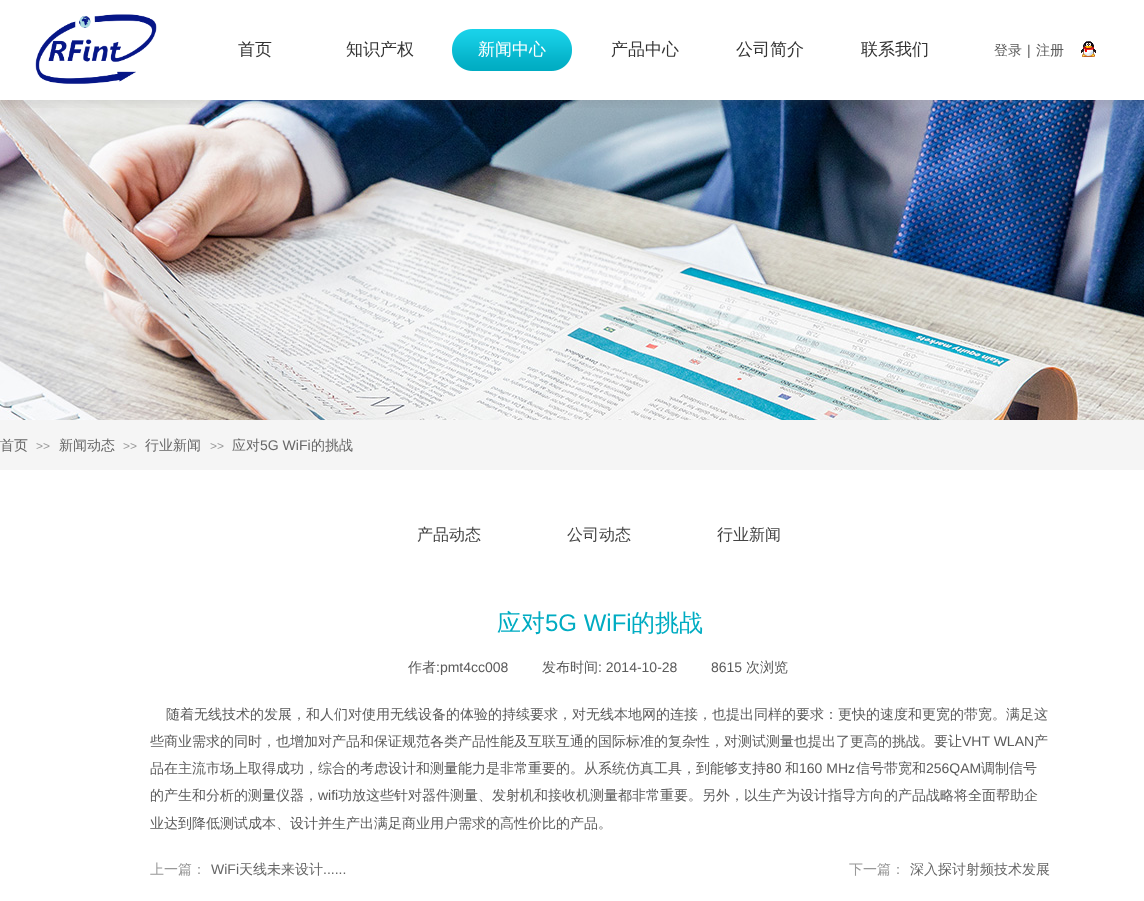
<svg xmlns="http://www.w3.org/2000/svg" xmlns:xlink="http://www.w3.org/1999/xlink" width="1144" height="901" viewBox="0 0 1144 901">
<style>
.cls-1{font:500 17px WenQuanYi Zen Hei;fill:#333333}
.cls-2{font:500 17px WenQuanYi Zen Hei;fill:#ffffff}
.cls-3{font:500 14px WenQuanYi Zen Hei;fill:#5a5a5a}
.cls-4{font:14px Liberation Sans;fill:#5a5a5a}
.cls-5{font:500 14px WenQuanYi Zen Hei;fill:#666666}
.cls-6{font:12px Liberation Sans;fill:#999999}
.cls-7{font:14px Liberation Sans;fill:#666666}
.cls-8{font:500 16px WenQuanYi Zen Hei;fill:#434343}
.cls-9{font:500 24px WenQuanYi Zen Hei;fill:#00acc2}
.cls-10{font:24px Liberation Sans;fill:#00acc2}
.cls-11{font:500 14px WenQuanYi Zen Hei;fill:#999999}
</style>
<rect width="100%" height="100%" fill="#ffffff"/>
<image xlink:href="image0.png" x="35" y="14" width="122" height="70"/>
<image xlink:href="image1.png" x="452" y="29" width="120" height="42"/>
<image xlink:href="image2.png" x="1081" y="41" width="15" height="16"/>
<image xlink:href="image4.png" x="0" y="100" width="1144" height="320"/>
<image xlink:href="image3.png" x="0" y="100" width="1144" height="8"/>
<rect fill="#f5f5f5" x="0" y="420" width="1144" height="50"/>
<text class="cls-1" x="238" y="55">首页</text>
<text class="cls-1" x="346" y="55">知识产权</text>
<text class="cls-2" x="478" y="55">新闻中心</text>
<text class="cls-1" x="611" y="55">产品中心</text>
<text class="cls-1" x="736" y="55">公司简介</text>
<text class="cls-1" x="861" y="55">联系我们</text>
<text class="cls-3" x="994" y="55">登录</text>
<text class="cls-4" x="1027" y="55">|</text>
<text class="cls-3" x="1036" y="55">注册</text>
<text class="cls-5" x="0" y="450">首页</text>
<text class="cls-6" x="36" y="450">&gt;&gt;</text>
<text class="cls-5" x="59" y="450">新闻动态</text>
<text class="cls-6" x="123" y="450">&gt;&gt;</text>
<text class="cls-5" x="145" y="450">行业新闻</text>
<text class="cls-6" x="210" y="450">&gt;&gt;</text>
<text class="cls-5" x="232" y="450">应对</text>
<text class="cls-7" x="260" y="450">5G WiFi</text>
<text class="cls-5" x="311" y="450">的挑战</text>
<text class="cls-8" x="417" y="540">产品动态</text>
<text class="cls-8" x="567" y="540">公司动态</text>
<text class="cls-8" x="717" y="540">行业新闻</text>
<text class="cls-9" x="497" y="631">应对</text>
<text class="cls-10" x="545" y="631">5G WiFi</text>
<text class="cls-9" x="631" y="631">的挑战</text>
<text class="cls-3" x="408" y="672">作者</text>
<text class="cls-4" x="436" y="672">:pmt4cc008</text>
<text class="cls-3" x="542" y="672">发布时间</text>
<text class="cls-4" x="598" y="672">: 2014-10-28</text>
<text class="cls-4" x="711" y="672">8615</text>
<text class="cls-3" x="746" y="672">次浏览</text>
<text class="cls-3" x="166" y="719">随着无线技术的发展，和人们对使用无线设备的体验的持续要求，对无线本地网的连接，也提出同样的要求：更快的速度和更宽的带宽。满足这</text>
<text class="cls-3" x="150" y="746">些商业需求的同时，也增加对产品和保证规范各类产品性能及互联互通的国际标准的复杂性，对测试测量也提出了更高的挑战。要让</text>
<text class="cls-4" x="962" y="746">VHT WLAN</text>
<text class="cls-3" x="1034" y="746">产</text>
<text class="cls-3" x="150" y="773">品在主流市场上取得成功，综合的考虑设计和测量能力是非常重要的。从系统仿真工具，到能够支持</text>
<text class="cls-4" x="766" y="773">80</text>
<text class="cls-3" x="785" y="773">和</text>
<text class="cls-4" x="799" y="773">160 MHz</text>
<text class="cls-3" x="856" y="773">信号带宽和</text>
<text class="cls-4" x="926" y="773">256QAM</text>
<text class="cls-3" x="981" y="773">调制信号</text>
<text class="cls-3" x="150" y="800">的产生和分析的测量仪器，</text>
<text class="cls-4" x="318" y="800">wifi</text>
<text class="cls-3" x="338" y="800">功放这些针对器件测量、发射机和接收机测量都非常重要。另外，以生产为设计指导方向的产品战略将全面帮助企</text>
<text class="cls-3" x="150" y="828">业达到降低测试成本、设计并生产出满足商业用户需求的高性价比的产品。</text>
<text class="cls-11" x="150" y="874">上一篇：</text>
<text class="cls-7" x="211" y="874">WiFi</text>
<text class="cls-5" x="239" y="874">天线未来设计</text>
<text class="cls-7" x="323" y="874">......</text>
<text class="cls-11" x="849" y="874">下一篇：</text>
<text class="cls-5" x="910" y="874">深入探讨射频技术发展</text>
</svg>
